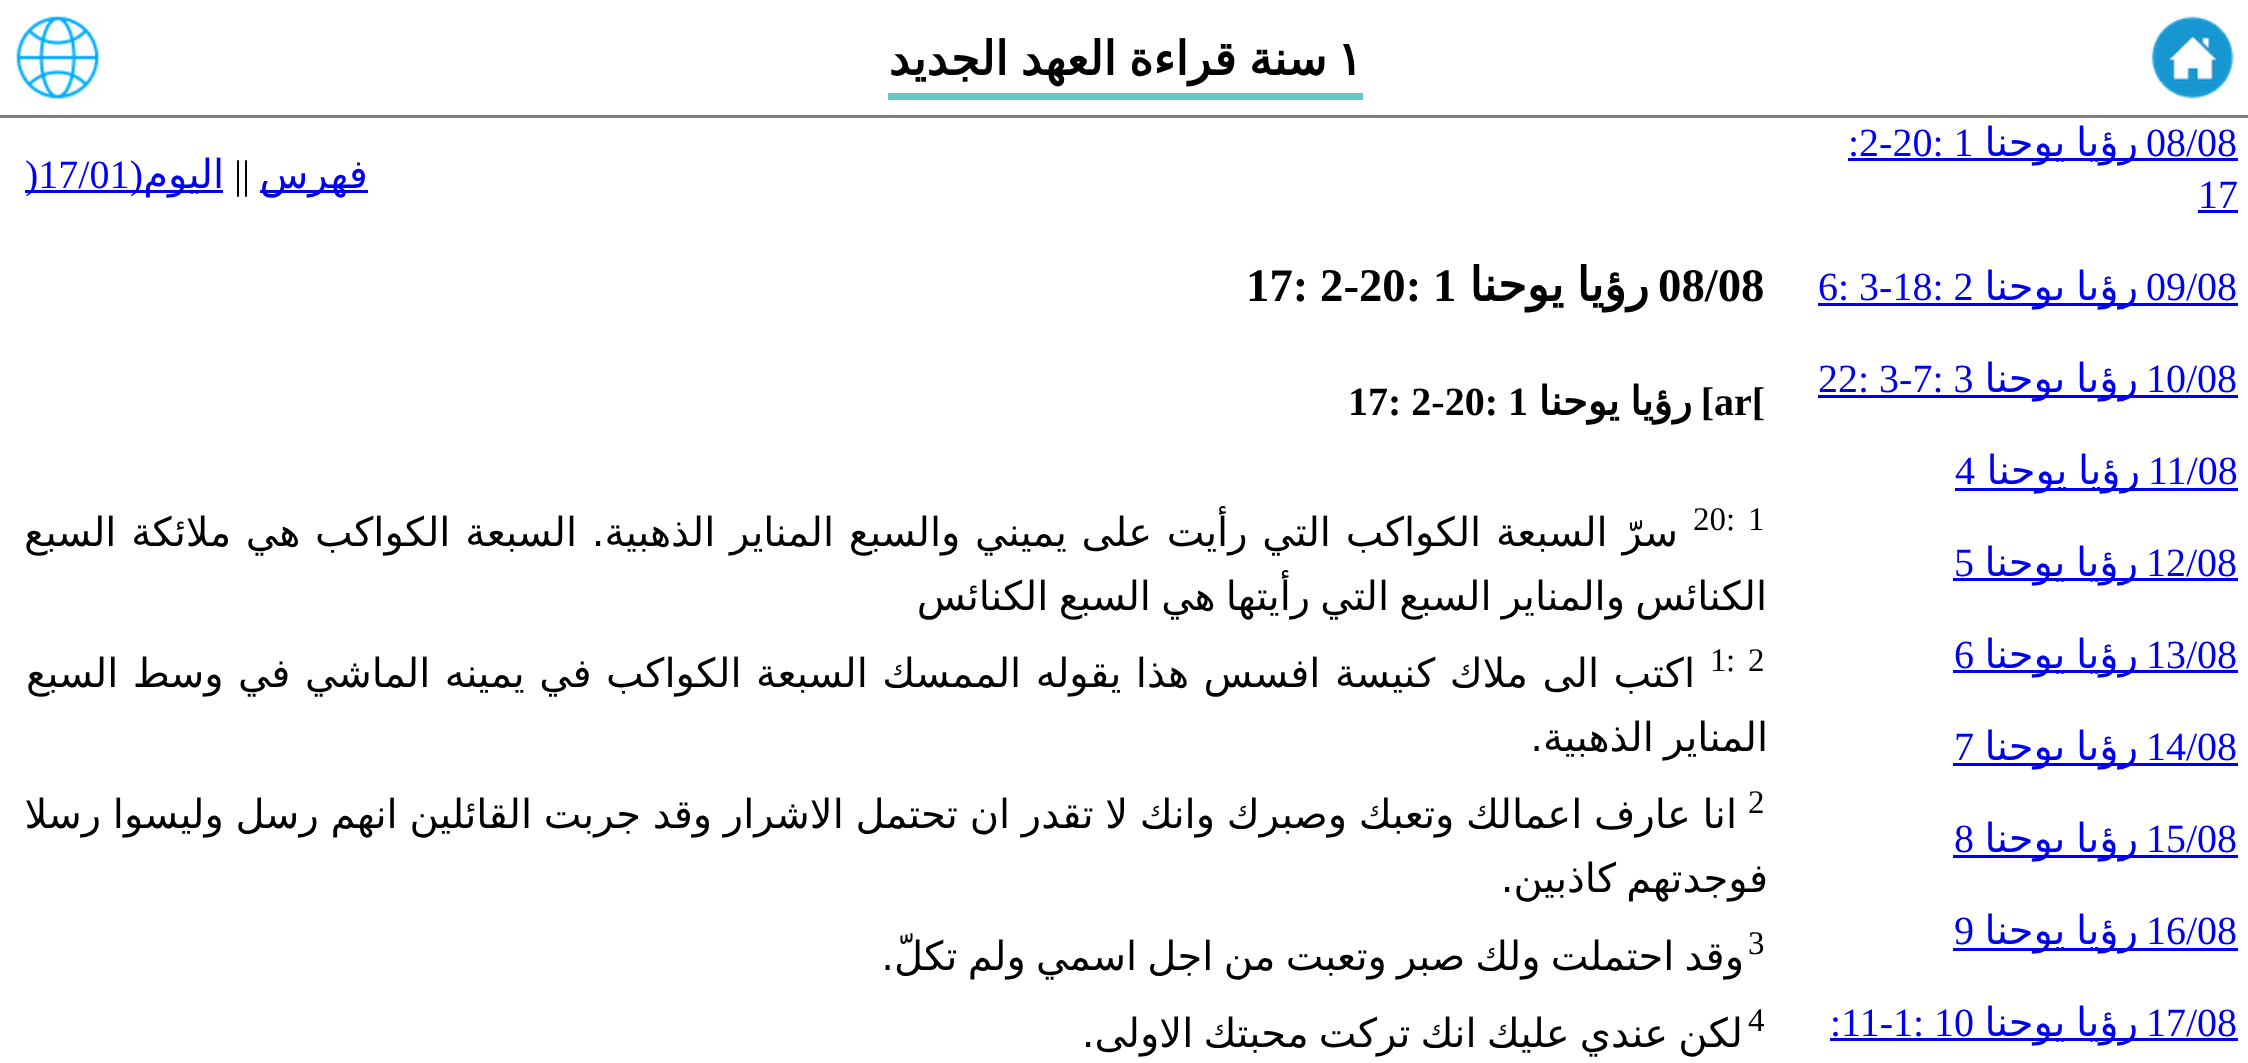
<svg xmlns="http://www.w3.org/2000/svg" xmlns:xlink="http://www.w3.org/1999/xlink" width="2248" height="1063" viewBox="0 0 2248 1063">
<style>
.cls-1{font:bold 46.75px DejaVu Sans;fill:#000000}
.cls-2{font:bold 46.75px DejaVu Sans;direction:rtl;fill:#000000}
.cls-3{font:40px Liberation Serif;fill:#0000ee}
.cls-4{font:40px DejaVu Sans;direction:rtl;fill:#0000ee}
.cls-5{font:40px Liberation Serif;fill:#000000}
.cls-6{font:40px Liberation Serif;direction:rtl;fill:#0000ee}
.cls-7{font:bold 46.75px Liberation Serif;fill:#000000}
.cls-8{font:bold 40px Liberation Serif;fill:#000000}
.cls-9{font:bold 40px Liberation Serif;direction:rtl;fill:#000000}
.cls-10{font:bold 40px DejaVu Sans;direction:rtl;fill:#000000}
.cls-11{font:33px Liberation Serif;fill:#000000}
.cls-12{font:40px DejaVu Sans;direction:rtl;fill:#000000}
</style>
<rect width="100%" height="100%" fill="#ffffff"/>
<rect fill="#808080" x="0" y="115" width="2248" height="3"/>
<image xlink:href="image0.png" x="2151" y="16" width="83" height="83"/>
<rect fill="#64c8c8" x="888" y="93" width="475" height="7"/>
<image xlink:href="image1.png" x="16" y="16" width="84" height="83"/>
<rect fill="#0000ee" x="1848" y="158" width="390" height="3"/>
<rect fill="#0000ee" x="2198" y="210" width="40" height="3"/>
<rect fill="#0000ee" x="1818" y="303" width="420" height="3"/>
<rect fill="#0000ee" x="1818" y="395" width="420" height="3"/>
<rect fill="#0000ee" x="1955" y="488" width="283" height="3"/>
<rect fill="#0000ee" x="1953" y="578" width="285" height="3"/>
<rect fill="#0000ee" x="1953" y="670" width="285" height="3"/>
<rect fill="#0000ee" x="1953" y="763" width="285" height="3"/>
<rect fill="#0000ee" x="1953" y="855" width="285" height="3"/>
<rect fill="#0000ee" x="1953" y="948" width="285" height="3"/>
<rect fill="#0000ee" x="1830" y="1038" width="408" height="3"/>
<rect fill="#0000ee" x="260" y="190" width="108" height="3"/>
<rect fill="#0000ee" x="25" y="190" width="198" height="3"/>
<text class="cls-1" x="1337" y="75">١</text>
<text class="cls-2" x="1327" y="75" word-spacing="-2.5">سنة قراءة العهد الجديد</text>
<text class="cls-3" x="2146" y="156">08/08</text>
<text class="cls-4" x="2138" y="156" word-spacing="-2">رؤيا يوحنا</text>
<text class="cls-3" x="1848" y="156">:2-20: 1</text>
<text class="cls-3" x="2198" y="208">17</text>
<text class="cls-3" x="2146" y="300">09/08</text>
<text class="cls-4" x="2138" y="300" word-spacing="-2">رؤيا يوحنا</text>
<text class="cls-3" x="1818" y="300">6: 3-18: 2</text>
<text class="cls-3" x="2146" y="392">10/08</text>
<text class="cls-4" x="2138" y="392" word-spacing="-2">رؤيا يوحنا</text>
<text class="cls-3" x="1818" y="392">22: 3-7: 3</text>
<text class="cls-3" x="2148" y="484">11/08</text>
<text class="cls-4" x="2140" y="484" word-spacing="-2">رؤيا يوحنا</text>
<text class="cls-3" x="1955" y="484">4</text>
<text class="cls-3" x="2146" y="576">12/08</text>
<text class="cls-4" x="2138" y="576" word-spacing="-2">رؤيا يوحنا</text>
<text class="cls-3" x="1954" y="576">5</text>
<text class="cls-3" x="2146" y="668">13/08</text>
<text class="cls-4" x="2138" y="668" word-spacing="-2">رؤيا يوحنا</text>
<text class="cls-3" x="1954" y="668">6</text>
<text class="cls-3" x="2146" y="760">14/08</text>
<text class="cls-4" x="2138" y="760" word-spacing="-2">رؤيا يوحنا</text>
<text class="cls-3" x="1954" y="760">7</text>
<text class="cls-3" x="2146" y="852">15/08</text>
<text class="cls-4" x="2138" y="852" word-spacing="-2">رؤيا يوحنا</text>
<text class="cls-3" x="1954" y="852">8</text>
<text class="cls-3" x="2146" y="944">16/08</text>
<text class="cls-4" x="2138" y="944" word-spacing="-2">رؤيا يوحنا</text>
<text class="cls-3" x="1954" y="944">9</text>
<text class="cls-3" x="2146" y="1036">17/08</text>
<text class="cls-4" x="2138" y="1036" word-spacing="-2">رؤيا يوحنا</text>
<text class="cls-3" x="1830" y="1036">:11-1: 10</text>
<text class="cls-4" x="368" y="188">فهرس</text>
<text class="cls-5" x="234" y="188">||</text>
<text class="cls-4" x="224" y="188">اليوم</text>
<text class="cls-6" x="143" y="188">(</text>
<text class="cls-3" x="25" y="188">)17/01</text>
<text class="cls-7" x="1658" y="301">08/08</text>
<text class="cls-2" x="1649" y="301" word-spacing="-2">رؤيا يوحنا</text>
<text class="cls-7" x="1246" y="301">17: 2-20: 1</text>
<text class="cls-8" x="1714" y="415">ar[</text>
<text class="cls-9" x="1714" y="415">]</text>
<text class="cls-10" x="1692" y="415" word-spacing="-2">رؤيا يوحنا</text>
<text class="cls-8" x="1348" y="415">17: 2-20: 1</text>
<text class="cls-11" x="1748" y="530">1</text>
<text class="cls-11" x="1726" y="530">:</text>
<text class="cls-11" x="1693" y="530">20</text>
<text class="cls-12" x="1678" y="546" word-spacing="2">سرّ السبعة الكواكب التي رأيت على يميني والسبع المناير الذهبية. السبعة الكواكب هي ملائكة السبع</text>
<text class="cls-12" x="1767" y="610" word-spacing="-2.5">الكنائس والمناير السبع التي رأيتها هي السبع الكنائس</text>
<text class="cls-11" x="1748" y="671">2</text>
<text class="cls-11" x="1726" y="671">:</text>
<text class="cls-11" x="1710" y="671">1</text>
<text class="cls-12" x="1695" y="687" word-spacing="1.75">اكتب الى ملاك كنيسة افسس هذا يقوله الممسك السبعة الكواكب في يمينه الماشي في وسط السبع</text>
<text class="cls-12" x="1768" y="751" word-spacing="-2.5">المناير الذهبية.</text>
<text class="cls-11" x="1748" y="813">2</text>
<text class="cls-12" x="1737" y="828" word-spacing="-1">انا عارف اعمالك وتعبك وصبرك وانك لا تقدر ان تحتمل الاشرار وقد جربت القائلين انهم رسل وليسوا رسلا</text>
<text class="cls-12" x="1768" y="892" word-spacing="-2.5">فوجدتهم كاذبين.</text>
<text class="cls-11" x="1748" y="954">3</text>
<text class="cls-12" x="1744" y="970" word-spacing="-2.5">وقد احتملت ولك صبر وتعبت من اجل اسمي ولم تكلّ.</text>
<text class="cls-11" x="1748" y="1031">4</text>
<text class="cls-12" x="1743" y="1047" word-spacing="-2.5">لكن عندي عليك انك تركت محبتك الاولى.</text>
</svg>
